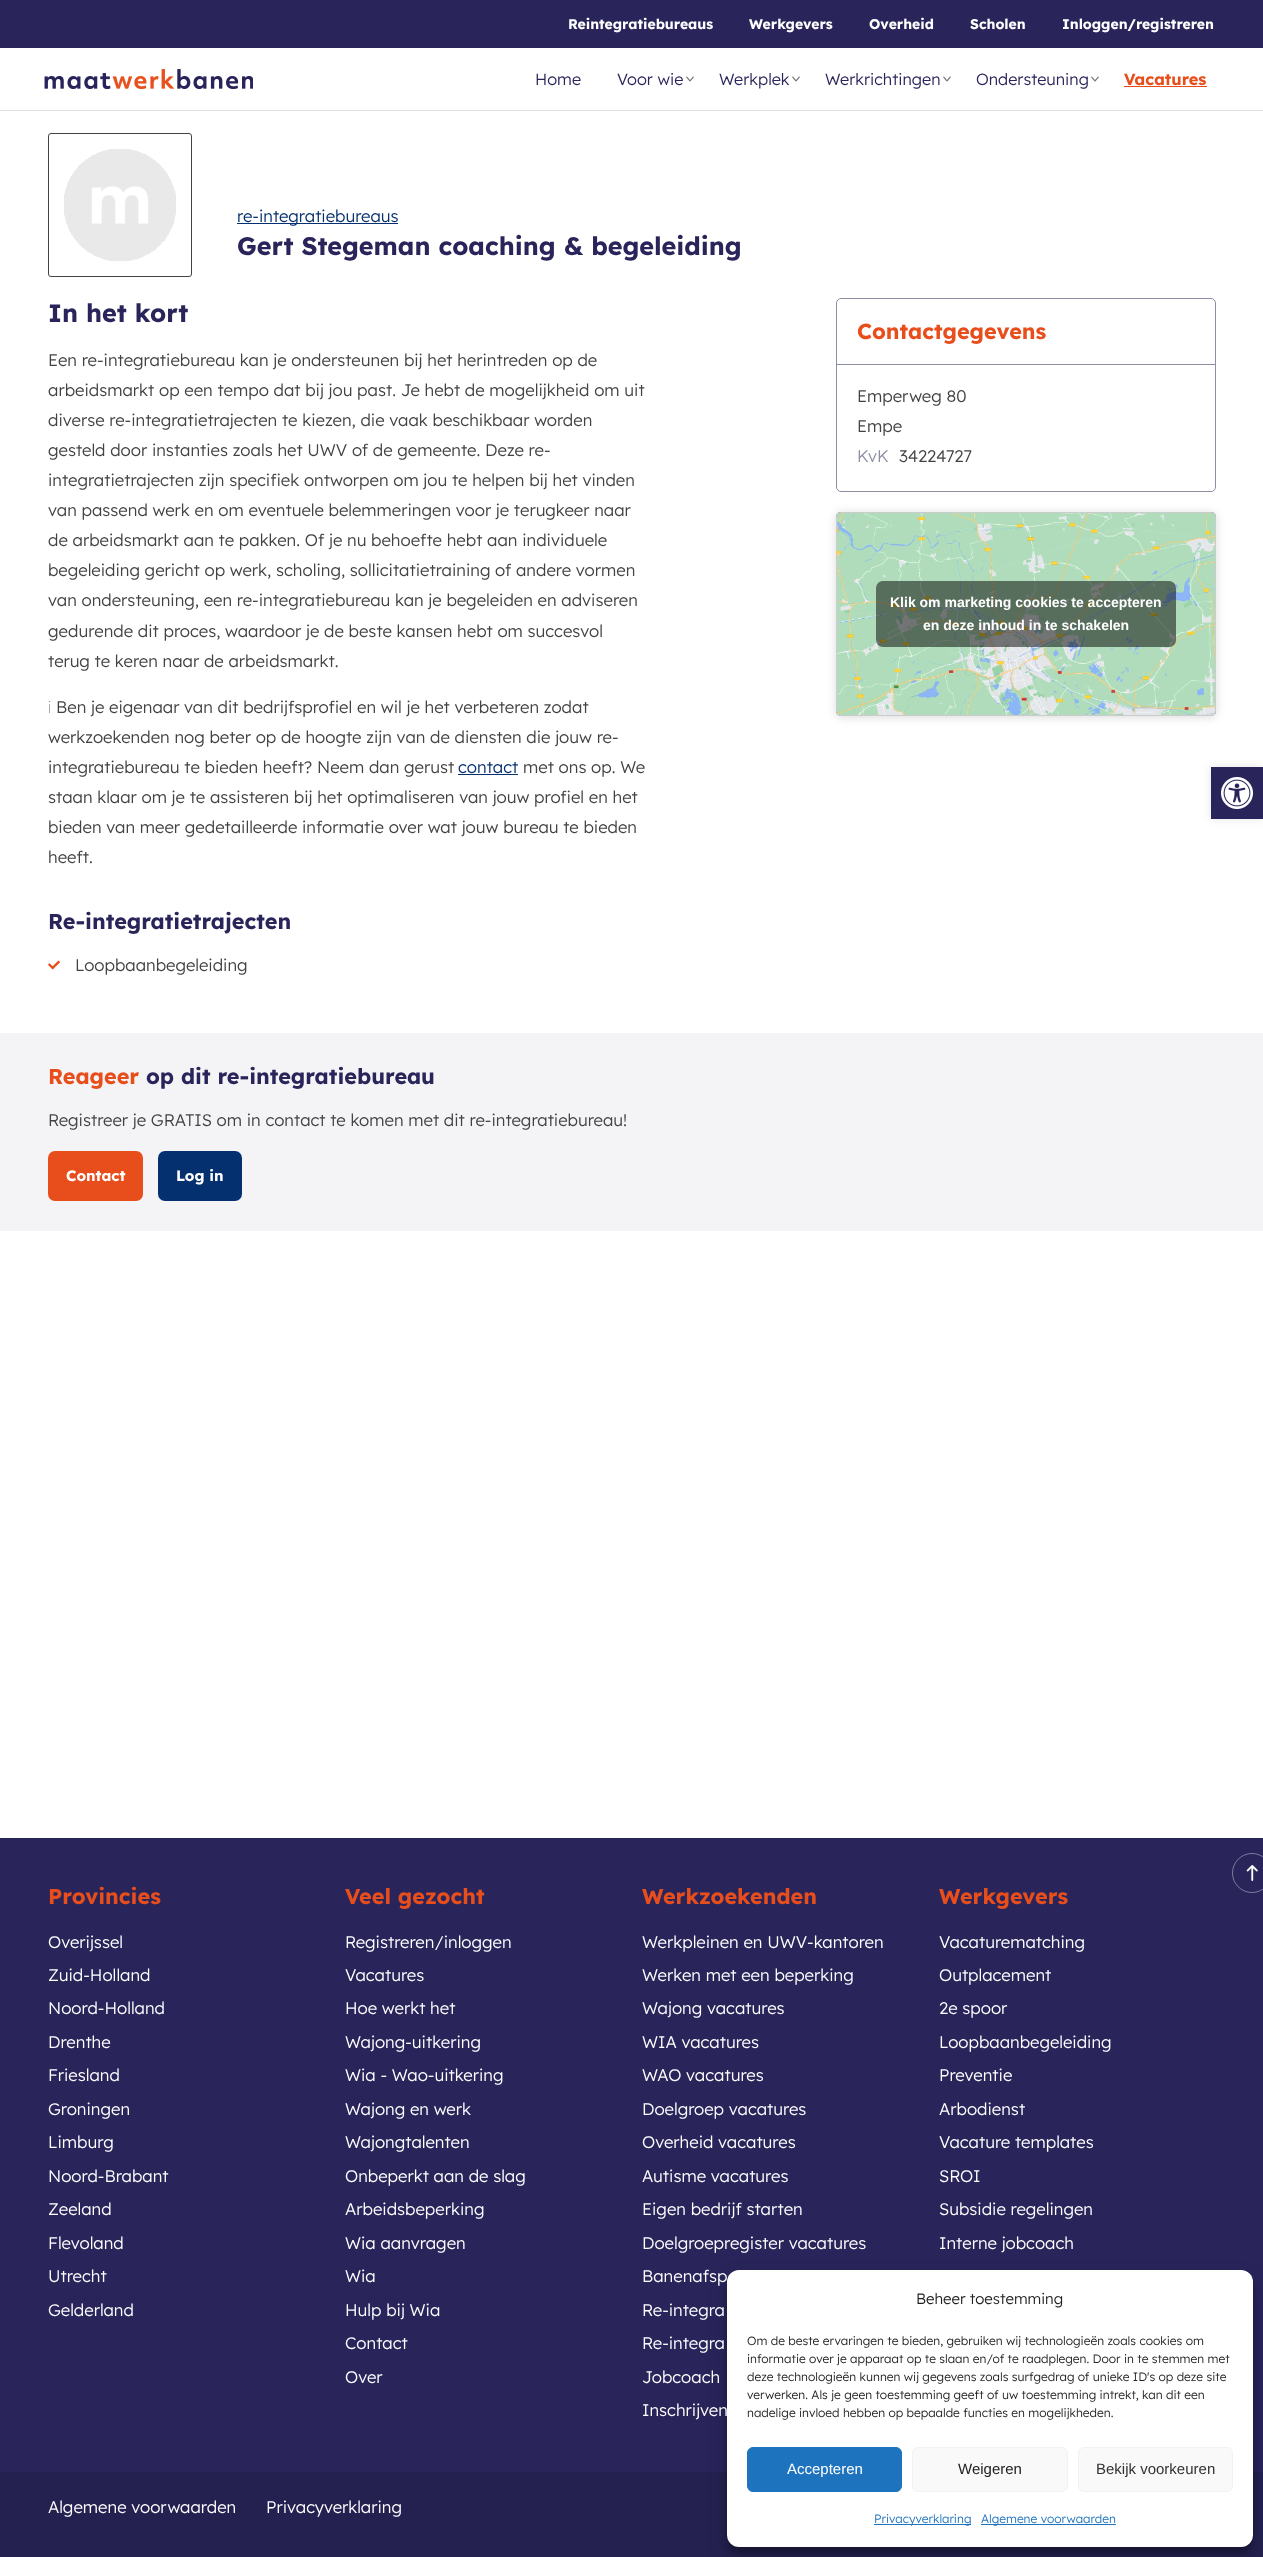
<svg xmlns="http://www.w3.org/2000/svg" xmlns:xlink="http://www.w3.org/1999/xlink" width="1263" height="2557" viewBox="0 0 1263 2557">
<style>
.cls-1{font:bold 14px Lexend Deca;fill:#ffffff}
.cls-2{font:300 16.25px Lexend Deca;fill:#29255b}
.cls-3{font:bold 16.25px Lexend Deca;fill:#e84e1b}
.cls-4{font:300 16.75px Lexend Deca;fill:#05306f}
.cls-5{font:bold 25.2px Lexend Deca;fill:#29255b}
.cls-6{font:300 16.75px Lexend Deca;fill:#424242}
.cls-7{font:100 16.75px Noto Sans;fill:#424242}
.cls-8{font:bold 21.6px Lexend Deca;fill:#29255b}
.cls-9{font:bold 21.6px Lexend Deca;fill:#e84e1b}
.cls-10{font:300 16.75px Lexend Deca;fill:#8c8fa3}
.cls-11{font:bold 14px Liberation Sans;fill:#ffffff}
.cls-12{font:bold 15px Lexend Deca;fill:#ffffff}
.cls-13{font:300 16.75px Lexend Deca;fill:#ffffff}
.cls-14{font:300 15px Lexend Deca;fill:#222222}
.cls-15{font:300 12px Lexend Deca;fill:#222222}
.cls-16{font:15px Liberation Sans;fill:#ffffff}
.cls-17{font:15px Liberation Sans;fill:#222222}
.cls-18{font:15px Liberation Sans;fill:#333333}
.cls-19{font:300 12px Lexend Deca;fill:#1e73be}
</style>
<rect width="100%" height="100%" fill="#ffffff"/>
<rect fill="#e0e0e0" x="0" y="110" width="1263" height="1"/>
<rect fill="#29255b" x="0" y="0" width="1263" height="48"/>
<image xlink:href="image0.png" x="44" y="69" width="209" height="20"/>
<image xlink:href="image1.png" x="686" y="76" width="8" height="6"/>
<image xlink:href="image1.png" x="792" y="76" width="8" height="6"/>
<image xlink:href="image1.png" x="943" y="76" width="8" height="6"/>
<image xlink:href="image1.png" x="1091" y="76" width="8" height="6"/>
<rect fill="#e84e1b" x="1124" y="86" width="83" height="1"/>
<rect fill="none" stroke="#424242" x="48.5" y="133.5" width="143" height="143" rx="2.5"/>
<image xlink:href="image2.png" x="64" y="149" width="112" height="112"/>
<rect fill="#05306f" x="237" y="223" width="161" height="1"/>
<rect fill="#05306f" x="458" y="774" width="60" height="1"/>
<image xlink:href="image3.png" x="48" y="960" width="12" height="10"/>
<rect fill="none" stroke="#8c8fa3" x="836.5" y="298.5" width="379" height="193" rx="4.5"/>
<rect fill="#8c8fa3" x="837" y="364" width="378" height="1"/>
<rect fill="#000000" fill-opacity="0.15" filter="blur(5px)" x="836" y="513" width="380" height="204" rx="5"/>
<rect fill="#000000" fill-opacity="0.5" filter="blur(0.5px)" x="836" y="512" width="380" height="204" rx="5"/>
<image xlink:href="image4.png" x="837" y="513" width="378" height="203"/>
<rect fill="none" stroke="#cccccc" x="836.5" y="512.5" width="379" height="203" rx="4.5"/>
<rect fill="#000000" fill-opacity="0.5" x="876" y="581" width="300" height="66" rx="7"/>
<rect fill="#f4f4f7" x="0" y="1033" width="1263" height="198"/>
<rect fill="#e84e1b" x="48" y="1151" width="95" height="50" rx="7"/>
<rect fill="#05306f" x="158" y="1151" width="84" height="50" rx="7"/>
<rect fill="#000000" fill-opacity="0.1" filter="blur(5px)" x="1211" y="767" width="52" height="52"/>
<rect fill="#29255b" x="1211" y="767" width="52" height="52"/>
<image xlink:href="image5.png" x="1221" y="777" width="32" height="32"/>
<rect fill="#29255b" x="0" y="1838" width="1263" height="634"/>
<circle fill="none" stroke="#7c7a9b" cx="1252" cy="1873" r="19.5"/>
<image xlink:href="image6.png" x="1246" y="1865" width="12" height="16"/>
<rect fill="#242151" x="0" y="2472" width="1263" height="85"/>
<rect fill="#000000" fill-opacity="0.23" filter="blur(3px)" x="727" y="2276" width="526" height="277" rx="12"/>
<rect fill="#000000" fill-opacity="0.19" filter="blur(10px)" x="727" y="2280" width="526" height="277" rx="12"/>
<rect fill="#ffffff" x="727" y="2270" width="526" height="277" rx="12"/>
<rect fill="#1e73be" stroke="#1e73be" x="747.5" y="2447.5" width="154" height="44" rx="5.5"/>
<rect fill="#f9f9f9" stroke="#f2f2f2" x="912.5" y="2447.5" width="155" height="44" rx="5.5"/>
<rect fill="#f9f9f9" stroke="#f2f2f2" x="1078.5" y="2447.5" width="154" height="44" rx="5.5"/>
<rect fill="#1e73be" x="874" y="2524" width="97" height="1"/>
<rect fill="#1e73be" x="981" y="2524" width="135" height="1"/>
<text class="cls-1" x="568" y="29">Reintegratiebureaus</text>
<text class="cls-1" x="749" y="29">Werkgevers</text>
<text class="cls-1" x="869" y="29">Overheid</text>
<text class="cls-1" x="970" y="29">Scholen</text>
<text class="cls-1" x="1062" y="29">Inloggen/registreren</text>
<text class="cls-2" x="535" y="85">Home</text>
<text class="cls-2" x="617" y="85">Voor wie</text>
<text class="cls-2" x="719" y="85">Werkplek</text>
<text class="cls-2" x="825" y="85">Werkrichtingen</text>
<text class="cls-2" x="976" y="85">Ondersteuning</text>
<text class="cls-3" x="1124" y="85">Vacatures</text>
<text class="cls-4" x="237" y="222">re-integratiebureaus</text>
<text class="cls-5" x="237" y="255">Gert Stegeman coaching &amp; begeleiding</text>
<text class="cls-5" x="48" y="322">In het kort</text>
<text class="cls-6"><tspan x="48" y="366">Een re-integratiebureau kan je ondersteunen bij het herintreden op de</tspan><tspan x="48" y="396">arbeidsmarkt op een tempo dat bij jou past. Je hebt de mogelijkheid om uit</tspan><tspan x="48" y="426">diverse re-integratietrajecten te kiezen, die vaak beschikbaar worden</tspan><tspan x="48" y="456">gesteld door instanties zoals het UWV of de gemeente. Deze re-</tspan><tspan x="48" y="486">integratietrajecten zijn specifiek ontworpen om jou te helpen bij het vinden</tspan><tspan x="48" y="516">van passend werk en om eventuele belemmeringen voor je terugkeer naar</tspan><tspan x="48" y="546">de arbeidsmarkt aan te pakken. Of je nu behoefte hebt aan individuele</tspan><tspan x="48" y="576">begeleiding gericht op werk, scholing, sollicitatietraining of andere vormen</tspan><tspan x="48" y="606">van ondersteuning, een re-integratiebureau kan je begeleiden en adviseren</tspan><tspan x="48" y="637">gedurende dit proces, waardoor je de beste kansen hebt om succesvol</tspan><tspan x="48" y="667">terug te keren naar de arbeidsmarkt.</tspan></text>
<text class="cls-7" x="48" y="713">ℹ</text>
<text class="cls-6" x="56" y="713">Ben je eigenaar van dit bedrijfsprofiel en wil je het verbeteren zodat</text>
<text class="cls-6"><tspan x="48" y="743">werkzoekenden nog beter op de hoogte zijn van de diensten die jouw re-</tspan><tspan x="48" y="773">integratiebureau te bieden heeft? Neem dan gerust</tspan></text>
<text class="cls-4" x="458" y="773">contact</text>
<text class="cls-6" x="523" y="773">met ons op. We</text>
<text class="cls-6"><tspan x="48" y="803">staan klaar om je te assisteren bij het optimaliseren van jouw profiel en het</tspan><tspan x="48" y="833">bieden van meer gedetailleerde informatie over wat jouw bureau te bieden</tspan><tspan x="48" y="863">heeft.</tspan></text>
<text class="cls-8" x="48" y="929">Re-integratietrajecten</text>
<text class="cls-6" x="75" y="971">Loopbaanbegeleiding</text>
<text class="cls-9" x="857" y="339">Contactgegevens</text>
<text class="cls-6"><tspan x="857" y="402">Emperweg 80</tspan><tspan x="857" y="432">Empe</tspan></text>
<text class="cls-10" x="857" y="462">KvK</text>
<text class="cls-6" x="899" y="462">34224727</text>
<text class="cls-11" x="890" y="607">Klik om marketing cookies te accepteren</text>
<text class="cls-11" x="923" y="630">en deze inhoud in te schakelen</text>
<text class="cls-9" x="48" y="1084">Reageer</text>
<text class="cls-8" x="146" y="1084">op dit re-integratiebureau</text>
<text class="cls-6" x="48" y="1126">Registreer je GRATIS om in contact te komen met dit re-integratiebureau!</text>
<text class="cls-12" x="66" y="1181">Contact</text>
<text class="cls-12" x="176" y="1181">Log in</text>
<text class="cls-9" x="48" y="1904">Provincies</text>
<text class="cls-13"><tspan x="48" y="1948">Overijssel</tspan><tspan x="48" y="1981">Zuid-Holland</tspan><tspan x="48" y="2014">Noord-Holland</tspan></text>
<text class="cls-13"><tspan x="48" y="2048">Drenthe</tspan><tspan x="48" y="2081">Friesland</tspan></text>
<text class="cls-13"><tspan x="48" y="2115">Groningen</tspan><tspan x="48" y="2148">Limburg</tspan></text>
<text class="cls-13"><tspan x="48" y="2182">Noord-Brabant</tspan><tspan x="48" y="2215">Zeeland</tspan></text>
<text class="cls-13"><tspan x="48" y="2249">Flevoland</tspan><tspan x="48" y="2282">Utrecht</tspan></text>
<text class="cls-13" x="48" y="2316">Gelderland</text>
<text class="cls-9" x="345" y="1904">Veel gezocht</text>
<text class="cls-13"><tspan x="345" y="1948">Registreren/inloggen</tspan><tspan x="345" y="1981">Vacatures</tspan><tspan x="345" y="2014">Hoe werkt het</tspan></text>
<text class="cls-13"><tspan x="345" y="2048">Wajong-uitkering</tspan><tspan x="345" y="2081">Wia - Wao-uitkering</tspan></text>
<text class="cls-13"><tspan x="345" y="2115">Wajong en werk</tspan><tspan x="345" y="2148">Wajongtalenten</tspan></text>
<text class="cls-13"><tspan x="345" y="2182">Onbeperkt aan de slag</tspan><tspan x="345" y="2215">Arbeidsbeperking</tspan></text>
<text class="cls-13"><tspan x="345" y="2249">Wia aanvragen</tspan><tspan x="345" y="2282">Wia</tspan></text>
<text class="cls-13"><tspan x="345" y="2316">Hulp bij Wia</tspan><tspan x="345" y="2349">Contact</tspan></text>
<text class="cls-13" x="345" y="2383">Over</text>
<text class="cls-9" x="642" y="1904">Werkzoekenden</text>
<text class="cls-13"><tspan x="642" y="1948">Werkpleinen en UWV-kantoren</tspan><tspan x="642" y="1981">Werken met een beperking</tspan><tspan x="642" y="2014">Wajong vacatures</tspan></text>
<text class="cls-13"><tspan x="642" y="2048">WIA vacatures</tspan><tspan x="642" y="2081">WAO vacatures</tspan></text>
<text class="cls-13"><tspan x="642" y="2115">Doelgroep vacatures</tspan><tspan x="642" y="2148">Overheid vacatures</tspan></text>
<text class="cls-13"><tspan x="642" y="2182">Autisme vacatures</tspan><tspan x="642" y="2215">Eigen bedrijf starten</tspan></text>
<text class="cls-13"><tspan x="642" y="2249">Doelgroepregister vacatures</tspan><tspan x="642" y="2282">Banenafsp</tspan></text>
<text class="cls-13"><tspan x="642" y="2316">Re-integra</tspan><tspan x="642" y="2349">Re-integra</tspan></text>
<text class="cls-13"><tspan x="642" y="2383">Jobcoach</tspan><tspan x="642" y="2416">Inschrijven</tspan></text>
<text class="cls-9" x="939" y="1904">Werkgevers</text>
<text class="cls-13"><tspan x="939" y="1948">Vacaturematching</tspan><tspan x="939" y="1981">Outplacement</tspan><tspan x="939" y="2014">2e spoor</tspan></text>
<text class="cls-13"><tspan x="939" y="2048">Loopbaanbegeleiding</tspan><tspan x="939" y="2081">Preventie</tspan></text>
<text class="cls-13"><tspan x="939" y="2115">Arbodienst</tspan><tspan x="939" y="2148">Vacature templates</tspan></text>
<text class="cls-13"><tspan x="939" y="2182">SROI</tspan><tspan x="939" y="2215">Subsidie regelingen</tspan></text>
<text class="cls-13" x="939" y="2249">Interne jobcoach</text>
<text class="cls-13" x="48" y="2513">Algemene voorwaarden</text>
<text class="cls-13" x="266" y="2513">Privacyverklaring</text>
<text class="cls-14" x="916" y="2304">Beheer toestemming</text>
<text class="cls-15"><tspan x="747" y="2345">Om de beste ervaringen te bieden, gebruiken wij technologieën zoals cookies om</tspan><tspan x="747" y="2363">informatie over je apparaat op te slaan en/of te raadplegen. Door in te stemmen met</tspan><tspan x="747" y="2381">deze technologieën kunnen wij gegevens zoals surfgedrag of unieke ID's op deze site</tspan><tspan x="747" y="2399">verwerken. Als je geen toestemming geeft of uw toestemming intrekt, kan dit een</tspan><tspan x="747" y="2417">nadelige invloed hebben op bepaalde functies en mogelijkheden.</tspan></text>
<text class="cls-16" x="787" y="2474">Accepteren</text>
<text class="cls-17" x="958" y="2474">Weigeren</text>
<text class="cls-18" x="1096" y="2474">Bekijk voorkeuren</text>
<text class="cls-19" x="874" y="2523">Privacyverklaring</text>
<text class="cls-19" x="981" y="2523">Algemene voorwaarden</text>
</svg>
